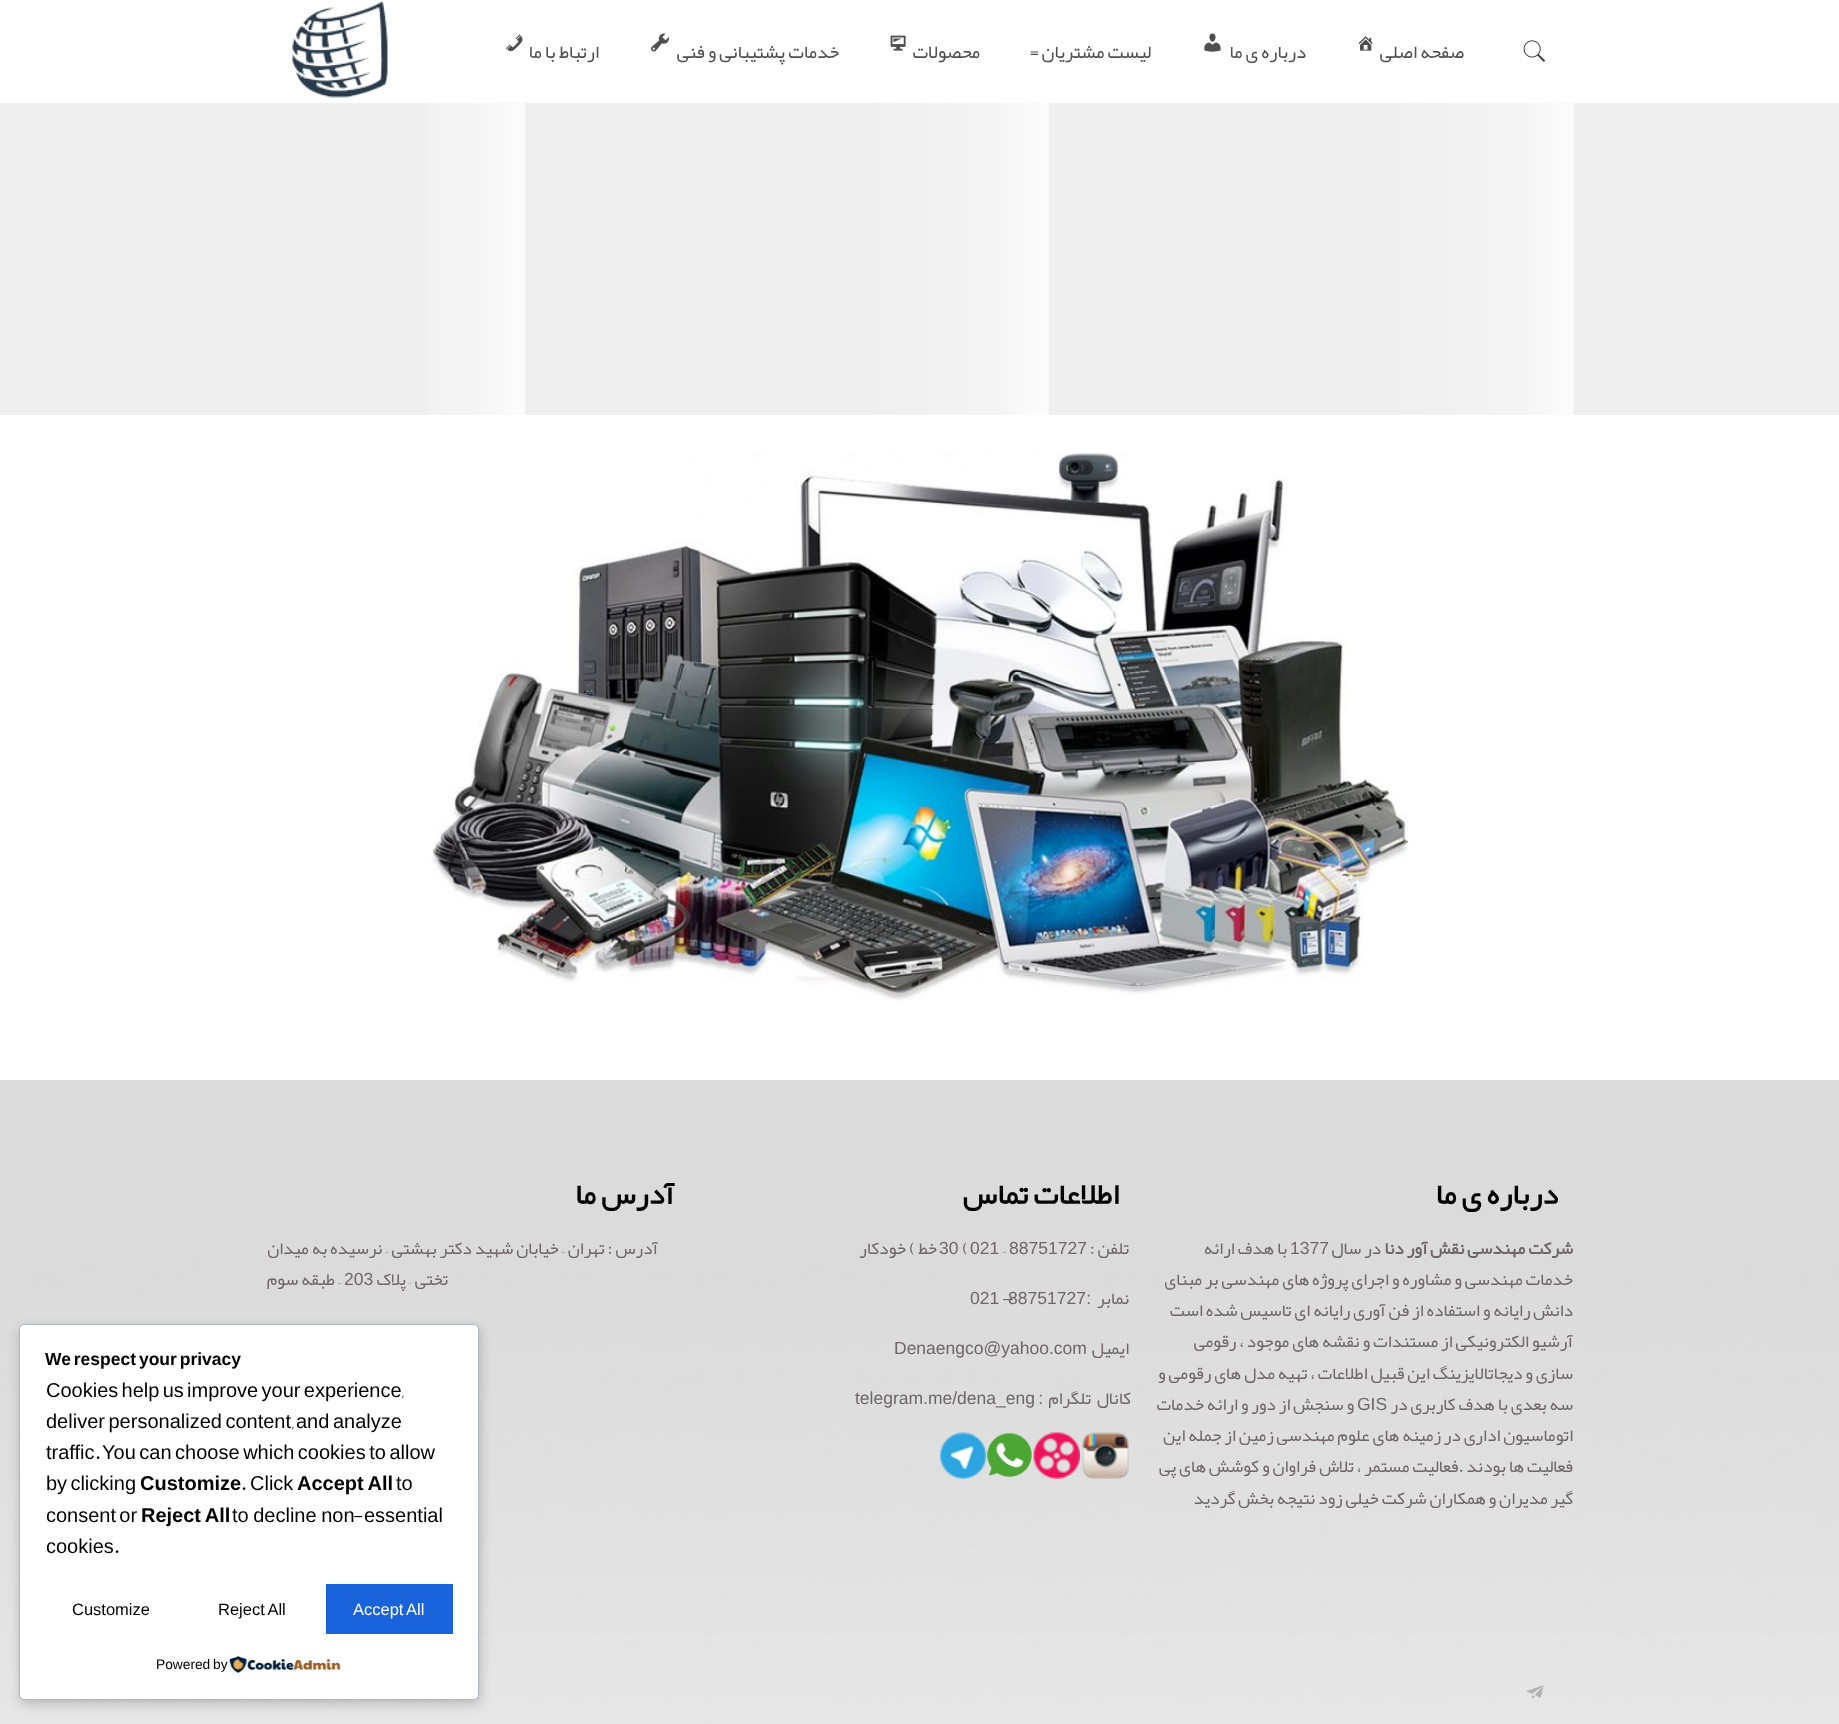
<svg xmlns="http://www.w3.org/2000/svg" xmlns:xlink="http://www.w3.org/1999/xlink" width="1839" height="1724" viewBox="0 0 1839 1724">
<style>
.cls-1{font:18.75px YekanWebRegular;direction:rtl;fill:#4f4f4f}
.cls-2{font:18.75px YekanWebRegular;fill:#4f4f4f}
.cls-3{font:bold 30px YekanWebRegular;direction:rtl;fill:#000000}
.cls-4{font:bold 17.5px YekanWebRegular;direction:rtl;fill:#6f6666}
.cls-5{font:17.5px YekanWebRegular;direction:rtl;fill:#6f6666}
.cls-6{font:17.5px Liberation Sans;fill:#6f6666}
.cls-7{font:17.5px YekanWebRegular;fill:#6f6666}
.cls-8{font:17.5px Liberation Sans;direction:rtl;fill:#6f6666}
.cls-9{font:bold 17.5px Liberation Sans;fill:#000000}
.cls-10{font:20px YekanWebRegular;fill:#000000}
.cls-11{font:20px Liberation Sans;fill:#000000}
.cls-12{font:bold 20px Liberation Sans;fill:#000000}
.cls-13{font:16.5px Liberation Sans;fill:#ffffff}
.cls-14{font:16.5px Liberation Sans;fill:#000000}
.cls-15{font:13.75px Liberation Sans;fill:#000000}
</style>
<rect width="100%" height="100%" fill="#ffffff"/>
<rect fill="#f0efef" x="0" y="103" width="1839" height="312"/>
<image xlink:href="image0.png" x="428" y="103" width="1146" height="312"/>
<image xlink:href="image1.png" x="1523" y="40" width="23" height="22"/>
<image xlink:href="image2.png" x="1358" y="36" width="15" height="15"/>
<image xlink:href="image3.png" x="1204" y="33" width="17" height="19"/>
<image xlink:href="image4.png" x="890" y="35" width="16" height="16"/>
<image xlink:href="image5.png" x="651" y="33" width="18" height="19"/>
<image xlink:href="image6.png" x="506" y="34" width="17" height="18"/>
<image xlink:href="image7.png" x="292" y="1" width="96" height="97"/>
<image xlink:href="image8.png" x="431" y="452" width="978" height="549"/>
<image xlink:href="image9.png" x="0" y="1080" width="1839" height="644"/>
<image xlink:href="image10.png" x="1082" y="1432" width="47" height="47"/>
<image xlink:href="image11.png" x="1033" y="1432" width="47" height="47"/>
<image xlink:href="image12.png" x="987" y="1432" width="45" height="45"/>
<image xlink:href="image13.png" x="940" y="1432" width="47" height="47"/>
<rect fill="#e7e7e7" x="0" y="1639" width="1839" height="1"/>
<image xlink:href="image14.png" x="1526" y="1685" width="18" height="14"/>
<rect fill="#000000" fill-opacity="0.2" filter="blur(6px)" x="20" y="1328" width="460" height="376" rx="5"/>
<rect fill="#ffffff" stroke="#abb8c3" x="19.5" y="1324.5" width="459" height="375" rx="4.5"/>
<rect fill="#1863dc" x="326" y="1584" width="127" height="50"/>
<image xlink:href="image15.png" x="229" y="1656" width="112" height="17"/>
<text class="cls-1" x="1464" y="58">صفحه اصلی</text>
<text class="cls-1" x="1306" y="58">درباره ی ما</text>
<text class="cls-1" x="1151" y="58">لیست مشتریان</text>
<text class="cls-2" x="1030" y="58">=</text>
<text class="cls-1" x="980" y="58">محصولات</text>
<text class="cls-1" x="839" y="58">خدمات پشتیبانی و فنی</text>
<text class="cls-1" x="599" y="58">ارتباط با ما</text>
<text class="cls-3" x="1558" y="1204">درباره ی ما</text>
<text class="cls-4" x="1573" y="1254">شرکت مهندسی نقش آور دنا</text>
<text class="cls-5" x="1381" y="1254">در سال</text>
<text class="cls-6" x="1290" y="1254">1377</text>
<text class="cls-5" x="1287" y="1254">با هدف ارائه</text>
<text class="cls-5"><tspan x="1573" y="1285">خدمات مهندسی و مشاوره و اجرای پروژه های مهندسی بر مبنای</tspan><tspan x="1573" y="1316">دانش رایانه و استفاده از فن آوری رایانه ای تاسیس شده است</tspan><tspan x="1573" y="1347">آرشیو الکترونیکی از مستندات و نقشه های موجود ، رقومی</tspan><tspan x="1573" y="1379">سازی و دیجاتالایزینگ این قبیل اطلاعات ، تهیه مدل های رقومی و</tspan><tspan x="1573" y="1410">سه بعدی با هدف کاربری در</tspan></text>
<text class="cls-6" x="1357" y="1410">GIS</text>
<text class="cls-5" x="1354" y="1410">و سنجش از دور و ارائه خدمات</text>
<text class="cls-5"><tspan x="1573" y="1441">اتوماسیون اداری در زمینه های علوم مهندسی زمین از جمله این</tspan><tspan x="1573" y="1472">فعالیت ها بودند .فعالیت مستمر ، تلاش فراوان و کوشش های پی</tspan><tspan x="1573" y="1504">گیر مدیران و همکاران شرکت خیلی زود نتیجه بخش گردید</tspan></text>
<text class="cls-3" x="1119" y="1204">اطلاعات تماس</text>
<text class="cls-5" x="1129" y="1254">تلفن :</text>
<text class="cls-6" x="1009" y="1254">88751727</text>
<text class="cls-7" x="1003" y="1254">–</text>
<text class="cls-6" x="970" y="1254">021</text>
<text class="cls-7" x="962" y="1254">(</text>
<text class="cls-6" x="939" y="1254">30</text>
<text class="cls-5" x="937" y="1254">خط ) خودکار</text>
<text class="cls-5" x="1129" y="1304">نمابر</text>
<text class="cls-8" x="1091" y="1304">:</text>
<text class="cls-6" x="1003" y="1304">–</text>
<text class="cls-6" x="1008" y="1304">88751727</text>
<text class="cls-6" x="970" y="1304">021</text>
<text class="cls-5" x="1129" y="1354">ایمیل</text>
<text class="cls-6" x="894" y="1354">Denaengco@yahoo.com</text>
<text class="cls-5" x="1131" y="1404">کانال</text>
<text class="cls-5" x="1091" y="1404">تلگرام</text>
<text class="cls-8" x="1043" y="1404">:</text>
<text class="cls-6" x="855" y="1404">telegram.me/dena_eng</text>
<text class="cls-3" x="674" y="1204">آدرس ما</text>
<text class="cls-5" x="658" y="1254">آدرس : تهران – خیابان شهید دکتر بهشتی – نرسیده به میدان</text>
<text class="cls-5" x="448" y="1285">تختی – پلاک</text>
<text class="cls-6" x="344" y="1285">203</text>
<text class="cls-5" x="341" y="1285">– طبقه سوم</text>
<text class="cls-9" x="45" y="1365" word-spacing="-2">We respect your privacy</text>
<text class="cls-10" x="402" y="1397">,</text>
<text class="cls-11" x="46" y="1397" word-spacing="-2.25">Cookies help us improve your experience</text>
<text class="cls-11" x="296" y="1428" word-spacing="-2">and analyze</text>
<text class="cls-10" x="292" y="1428">,</text>
<text class="cls-11" x="46" y="1428" word-spacing="-2">deliver personalized content</text>
<text class="cls-11" x="102" y="1459" word-spacing="-2">You can choose which cookies to allow</text>
<text class="cls-10" x="95" y="1459">.</text>
<text class="cls-11" x="46" y="1459">traffic</text>
<text class="cls-11" x="396" y="1490">to</text>
<text class="cls-12" x="297" y="1490" word-spacing="-1">Accept All</text>
<text class="cls-11" x="250" y="1490">Click</text>
<text class="cls-10" x="241" y="1490">.</text>
<text class="cls-12" x="140" y="1490">Customize</text>
<text class="cls-11" x="46" y="1490" word-spacing="-2.25">by clicking</text>
<text class="cls-11" x="364" y="1522">essential</text>
<text class="cls-10" x="353" y="1522">-</text>
<text class="cls-11" x="232" y="1522" word-spacing="-1">to decline non</text>
<text class="cls-12" x="141" y="1522" word-spacing="-1">Reject All</text>
<text class="cls-11" x="46" y="1522" word-spacing="-2.25">consent or</text>
<text class="cls-10" x="114" y="1553">.</text>
<text class="cls-11" x="46" y="1553">cookies</text>
<text class="cls-13" x="353" y="1615" word-spacing="-1">Accept All</text>
<text class="cls-14" x="218" y="1615" word-spacing="-1">Reject All</text>
<text class="cls-14" x="72" y="1615">Customize</text>
<text class="cls-15" x="156" y="1669" word-spacing="-1">Powered by</text>
</svg>
